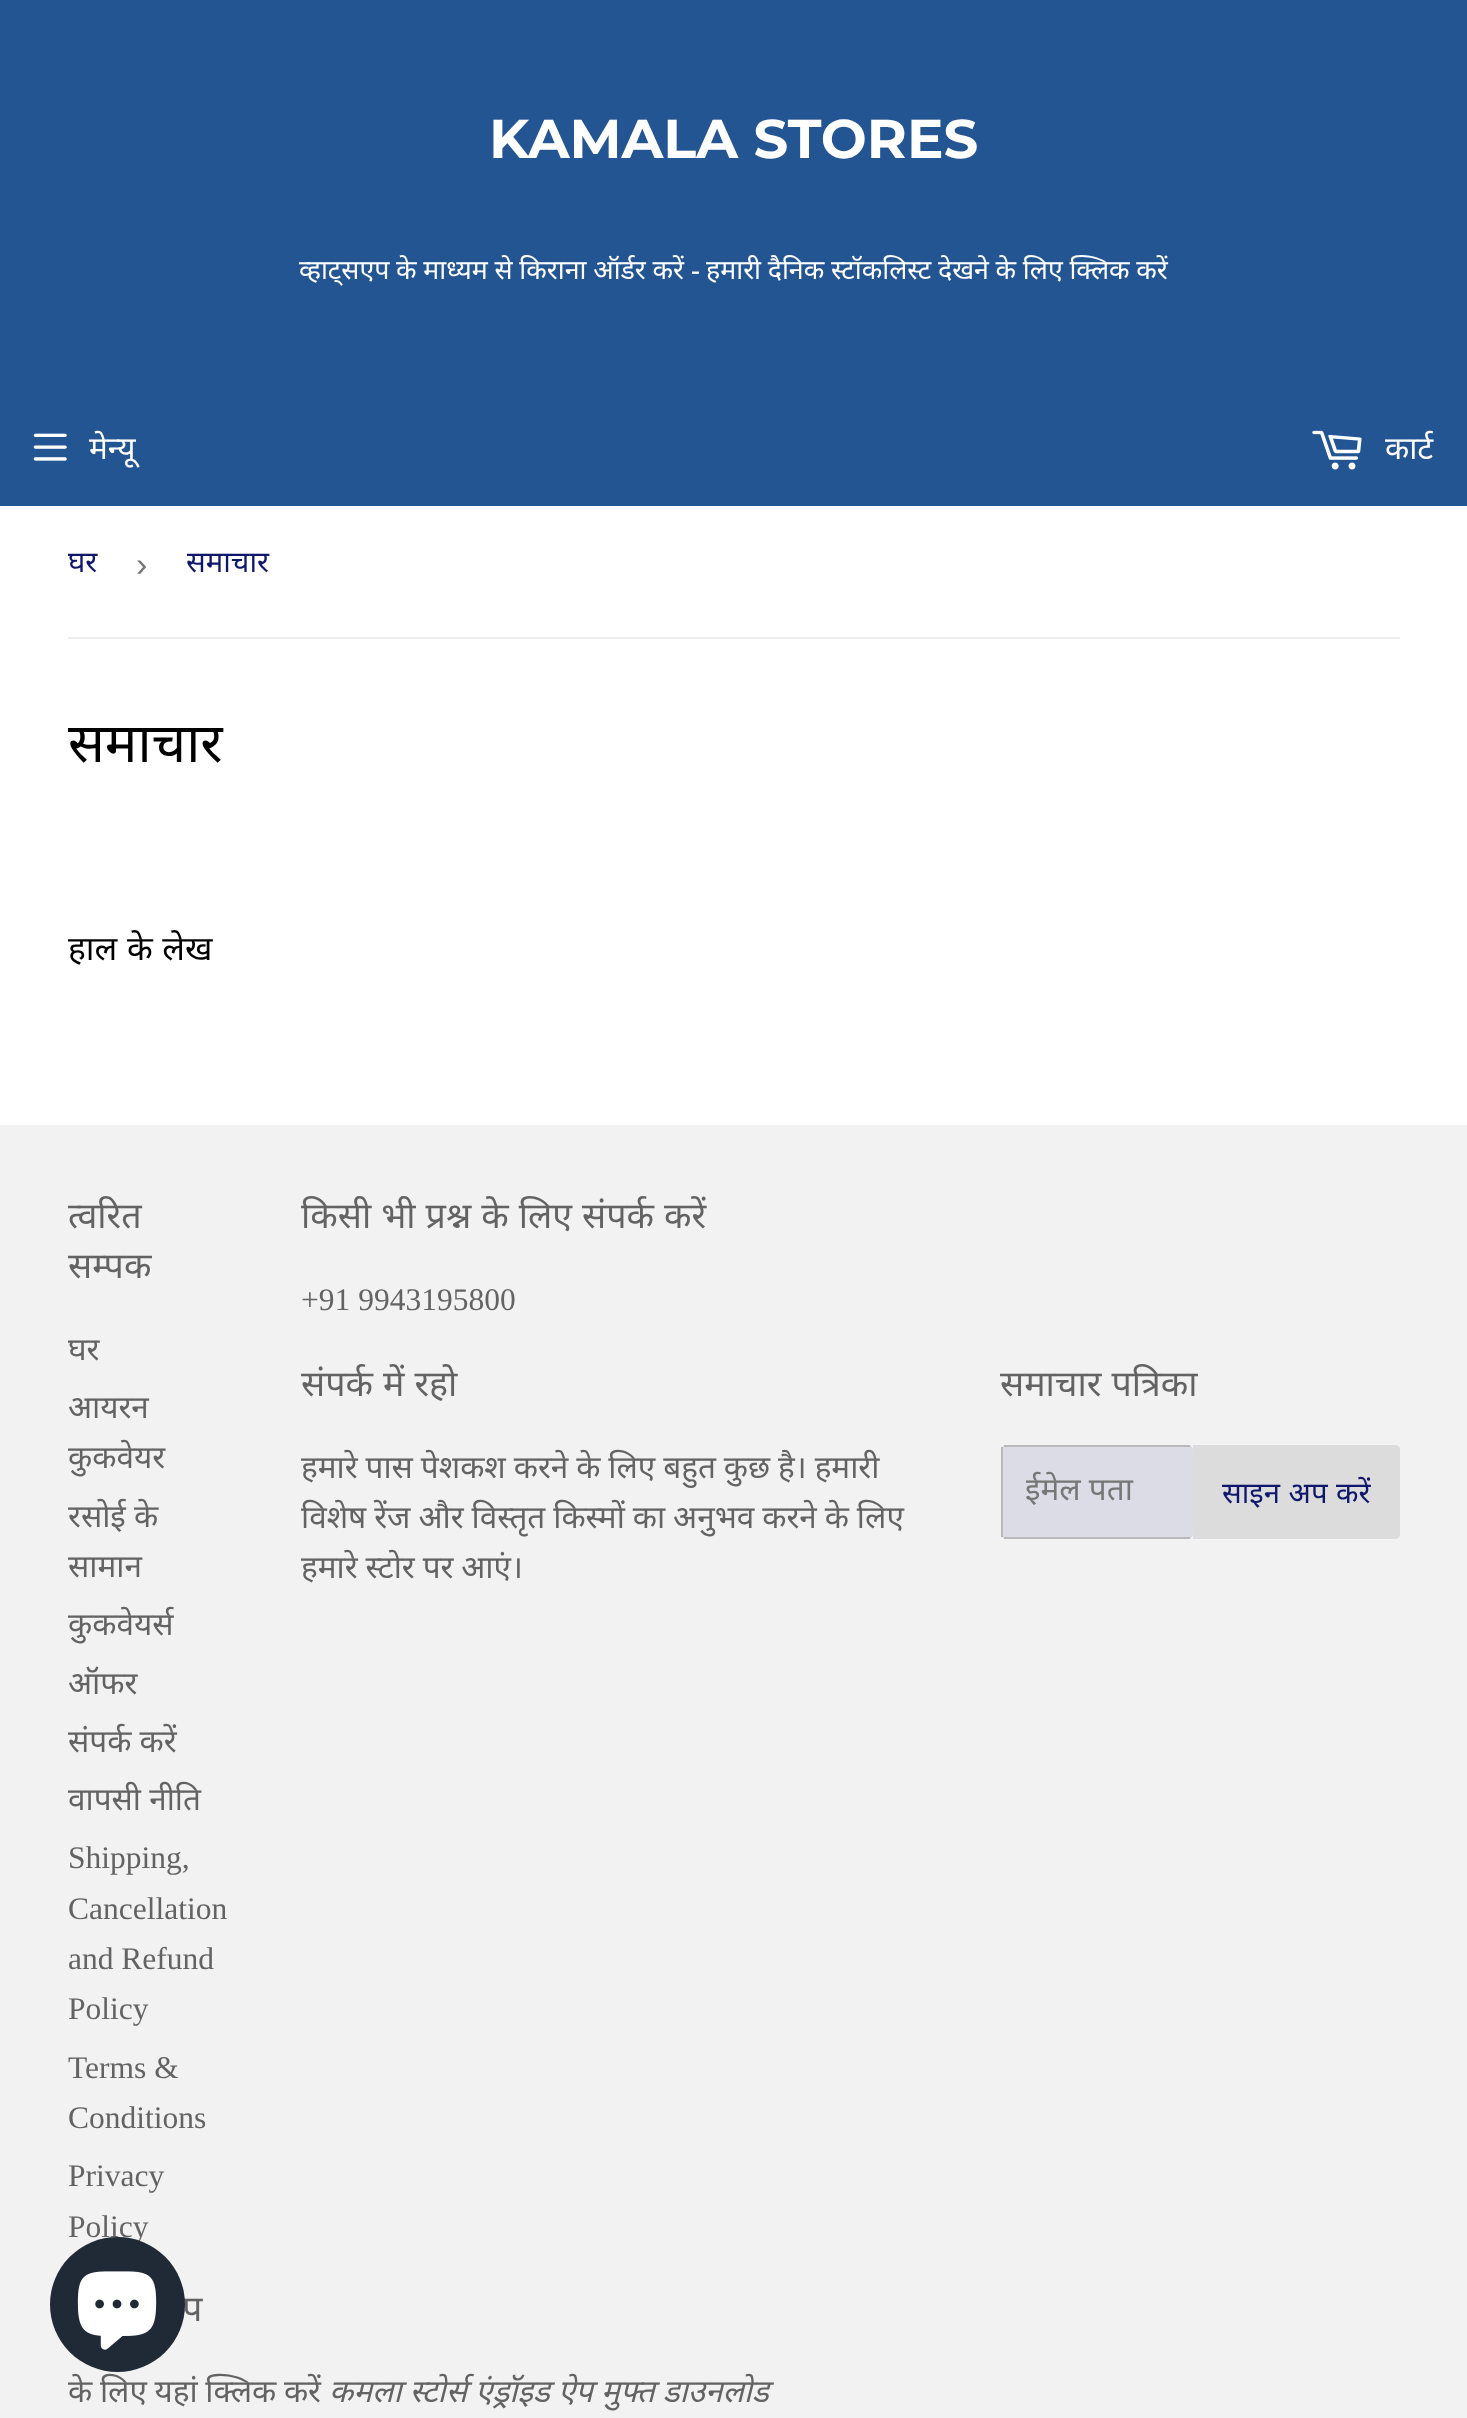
<svg xmlns="http://www.w3.org/2000/svg" xmlns:xlink="http://www.w3.org/1999/xlink" width="1467" height="2418" viewBox="0 0 1467 2418">
<style>
.cls-1{font:100 54.5px Montserrat;fill:#ffffff}
.cls-2{font:26.75px Noto Sans;fill:#ffffff}
.cls-3{font:bold 26.75px Liberation Serif;fill:#ffffff}
.cls-4{font:31.5px Noto Sans;fill:#ffffff}
.cls-5{font:29.25px Noto Sans;fill:#0e176c}
.cls-6{font:34px Liberation Sans;fill:#767676}
.cls-7{font:54.5px Noto Sans;fill:#000000}
.cls-8{font:33.5px Noto Sans;fill:#000000}
.cls-9{font:35.75px Noto Sans;fill:#636363}
.cls-10{font:31.5px Noto Sans;fill:#636363}
.cls-11{font:31.5px Liberation Serif;fill:#636363}
.cls-12{font:31.5px Noto Sans;fill:#767676}
.cls-13{font:italic 31.5px Noto Sans;fill:#636363}
</style>
<defs>
<clipPath id="clip1"><rect x="68" y="506" width="45" height="115"/></clipPath>
<clipPath id="clip2"><rect x="187" y="506" width="97" height="115"/></clipPath>
<clipPath id="clip3"><rect x="1026" y="1467" width="144" height="43"/></clipPath>
</defs>
<rect width="100%" height="100%" fill="#ffffff"/>
<rect fill="#235593" x="0" y="0" width="1467" height="506"/>
<image xlink:href="image0.png" x="33" y="433" width="34" height="28"/>
<image xlink:href="image1.png" x="1312" y="430" width="50" height="40"/>
<rect fill="#ececec" x="68" y="637" width="1332" height="2"/>
<rect fill="#f2f2f2" x="0" y="1125" width="1467" height="1293"/>
<rect fill="#dbdce5" x="1001" y="1445" width="192" height="94" rx="5"/>
<rect fill="#b9b9b9" x="1004" y="1445" width="186" height="2"/>
<rect fill="#b9b9b9" x="1004" y="1537" width="186" height="2"/>
<rect fill="#b9b9b9" x="1001" y="1447" width="2" height="90"/>
<path fill="#dcdcdc" d="M1193 1445H1395C1398 1445 1400 1447 1400 1450V1534C1400 1537 1398 1539 1395 1539H1193Z"/>
<text class="cls-1" x="489" y="158">KAMALA STORES</text>
<text class="cls-2" x="299" y="279" word-spacing="-0.25">व्हाट्सएप के माध्यम से किराना ऑर्डर करें</text>
<text class="cls-3" x="691" y="279">-</text>
<text class="cls-2" x="706" y="279" word-spacing="-0.25">हमारी दैनिक स्टॉकलिस्ट देखने के लिए क्लिक करें</text>
<text class="cls-4" x="89" y="459">मेन्यू</text>
<text class="cls-4" x="1385" y="459">कार्ट</text>
<g clip-path="url(#clip1)">
<text class="cls-5" x="68" y="572">घर</text>
</g>
<text class="cls-6" x="136" y="576">›</text>
<g clip-path="url(#clip2)">
<text class="cls-5" x="186" y="572">समाचार</text>
</g>
<text class="cls-7" x="68" y="762">समाचार</text>
<text class="cls-8" x="68" y="960" word-spacing="1">हाल के लेख</text>
<text class="cls-9"><tspan x="68" y="1228">त्वरित</tspan><tspan x="68" y="1278">सम्पक</tspan></text>
<text class="cls-10"><tspan x="68" y="1360">घर</tspan><tspan x="68" y="1418">आयरन</tspan><tspan x="68" y="1468">कुकवेयर</tspan><tspan x="68" y="1527">रसोई के</tspan><tspan x="68" y="1577">सामान</tspan><tspan x="68" y="1635">कुकवेयर्स</tspan><tspan x="68" y="1694">ऑफर</tspan><tspan x="68" y="1752">संपर्क करें</tspan><tspan x="68" y="1810">वापसी नीति</tspan></text>
<text class="cls-11"><tspan x="68" y="1868">Shipping,</tspan><tspan x="68" y="1919">Cancellation</tspan><tspan x="68" y="1969">and Refund</tspan><tspan x="68" y="2019">Policy</tspan><tspan x="68" y="2078">Terms &amp;</tspan><tspan x="68" y="2128">Conditions</tspan><tspan x="68" y="2186">Privacy</tspan><tspan x="68" y="2237">Policy</tspan></text>
<text class="cls-9" x="301" y="1228" word-spacing="0.75">किसी भी प्रश्न के लिए संपर्क करें</text>
<text class="cls-11" x="301" y="1310">+91 9943195800</text>
<text class="cls-9" x="301" y="1396" word-spacing="0.75">संपर्क में रहो</text>
<text class="cls-10"><tspan x="301" y="1478" word-spacing="-0.25">हमारे पास पेशकश करने के लिए बहुत कुछ है। हमारी</tspan><tspan x="301" y="1528" word-spacing="-0.25">विशेष रेंज और विस्तृत किस्मों का अनुभव करने के लिए</tspan><tspan x="301" y="1578" word-spacing="-0.25">हमारे स्टोर पर आएं।</tspan></text>
<text class="cls-9" x="1000" y="1396" word-spacing="0.75">समाचार पत्रिका</text>
<g clip-path="url(#clip3)">
<text class="cls-12" x="1025" y="1500">ईमेल पता</text>
</g>
<text class="cls-5" x="1222" y="1503" word-spacing="1">साइन अप करें</text>
<text class="cls-9" x="182" y="2321" word-spacing="0.75">प</text>
<text class="cls-10" x="68" y="2402" word-spacing="-0.5">के लिए यहां क्लिक करें</text>
<text class="cls-13" x="329" y="2402" word-spacing="-0.25">कमला स्टोर्स एंड्रॉइड ऐप मुफ्त डाउनलोड</text>
<circle fill="#202a36" cx="117.5" cy="2304.5" r="67.5"/>
<image xlink:href="image2.png" x="77" y="2271" width="80" height="79"/>
</svg>
